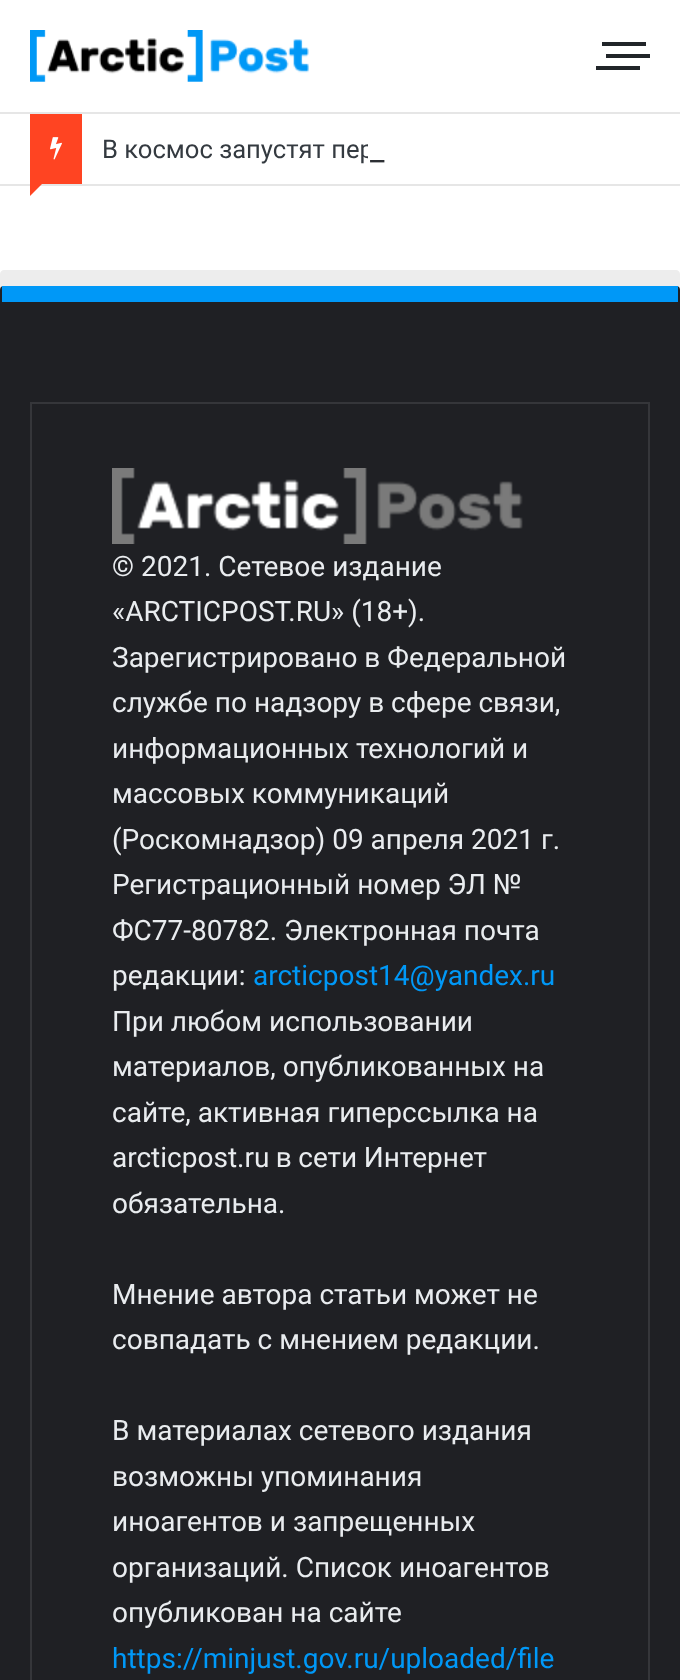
<svg xmlns="http://www.w3.org/2000/svg" xmlns:xlink="http://www.w3.org/1999/xlink" width="680" height="1680" viewBox="0 0 680 1680">
<style>
.cls-1{font:25.6px Roboto;fill:#343a40}
.cls-2{font:32px Roboto;fill:#2c2f34}
.cls-3{font:28px Roboto;fill:#e9ecef}
.cls-4{font:28px Roboto;fill:#0098f7}
</style>
<rect width="100%" height="100%" fill="#ffffff"/>
<image xlink:href="image0.png" x="30" y="30" width="279" height="52"/>
<rect fill="#212529" x="606" y="54" width="44" height="4"/>
<rect fill="#212529" x="602" y="42" width="44" height="4"/>
<rect fill="#212529" x="596" y="66" width="44" height="4"/>
<rect fill="#e6e6e6" x="0" y="112" width="680" height="2"/>
<rect fill="#e6e6e6" x="0" y="184" width="680" height="2"/>
<rect fill="#ff4422" x="30" y="114" width="52" height="70"/>
<image xlink:href="image1.png" x="50" y="137" width="12" height="23"/>
<path fill="#ff4422" d="M30 178H48L30 196Z"/>
<path fill="#ededed" d="M4 270C2 270 0 272 0 274V290C0 288 2 286 4 286H676C678 286 680 288 680 290V274C680 272 678 270 676 270Z"/>
<rect fill="#1f2024" x="0" y="286" width="680" height="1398" rx="4"/>
<rect fill="#0098f7" x="2" y="286" width="676" height="16"/>
<rect fill="none" stroke="#35363a" stroke-width="2" x="31" y="403" width="618" height="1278"/>
<image xlink:href="image2.png" x="112" y="468" width="411" height="76"/>
<text class="cls-1" x="102" y="158">В космос запустят пер</text>
<rect fill="#ffffff" x="368" y="144" width="5" height="15"/>
<text class="cls-2" x="370" y="160">_</text>
<text class="cls-3"><tspan x="112" y="576">© 2021. Сетевое издание</tspan><tspan x="112" y="621">«ARCTICPOST.RU» (18+).</tspan><tspan x="112" y="667">Зарегистрировано в Федеральной</tspan><tspan x="112" y="712">службе по надзору в сфере связи,</tspan><tspan x="112" y="758">информационных технологий и</tspan><tspan x="112" y="803">массовых коммуникаций</tspan><tspan x="112" y="849">(Роскомнадзор) 09 апреля 2021 г.</tspan><tspan x="112" y="894">Регистрационный номер ЭЛ №</tspan><tspan x="112" y="940">ФС77-80782. Электронная почта</tspan><tspan x="112" y="985">редакции:</tspan></text>
<text class="cls-4" x="253" y="985">arcticpost14@yandex.ru</text>
<text class="cls-3"><tspan x="112" y="1031">При любом использовании</tspan><tspan x="112" y="1076">материалов, опубликованных на</tspan><tspan x="112" y="1122">сайте, активная гиперссылка на</tspan><tspan x="112" y="1167" word-spacing="-0.5">arcticpost.ru в сети Интернет</tspan><tspan x="112" y="1213">обязательна.</tspan></text>
<text class="cls-3"><tspan x="112" y="1304">Мнение автора статьи может не</tspan><tspan x="112" y="1349">совпадать с мнением редакции.</tspan></text>
<text class="cls-3"><tspan x="112" y="1440">В материалах сетевого издания</tspan><tspan x="112" y="1486">возможны упоминания</tspan><tspan x="112" y="1531">иноагентов и запрещенных</tspan><tspan x="112" y="1577">организаций. Список иноагентов</tspan><tspan x="112" y="1622">опубликован на сайте</tspan></text>
<text class="cls-4" x="112" y="1668">https://minjust.gov.ru/uploaded/file</text>
</svg>
